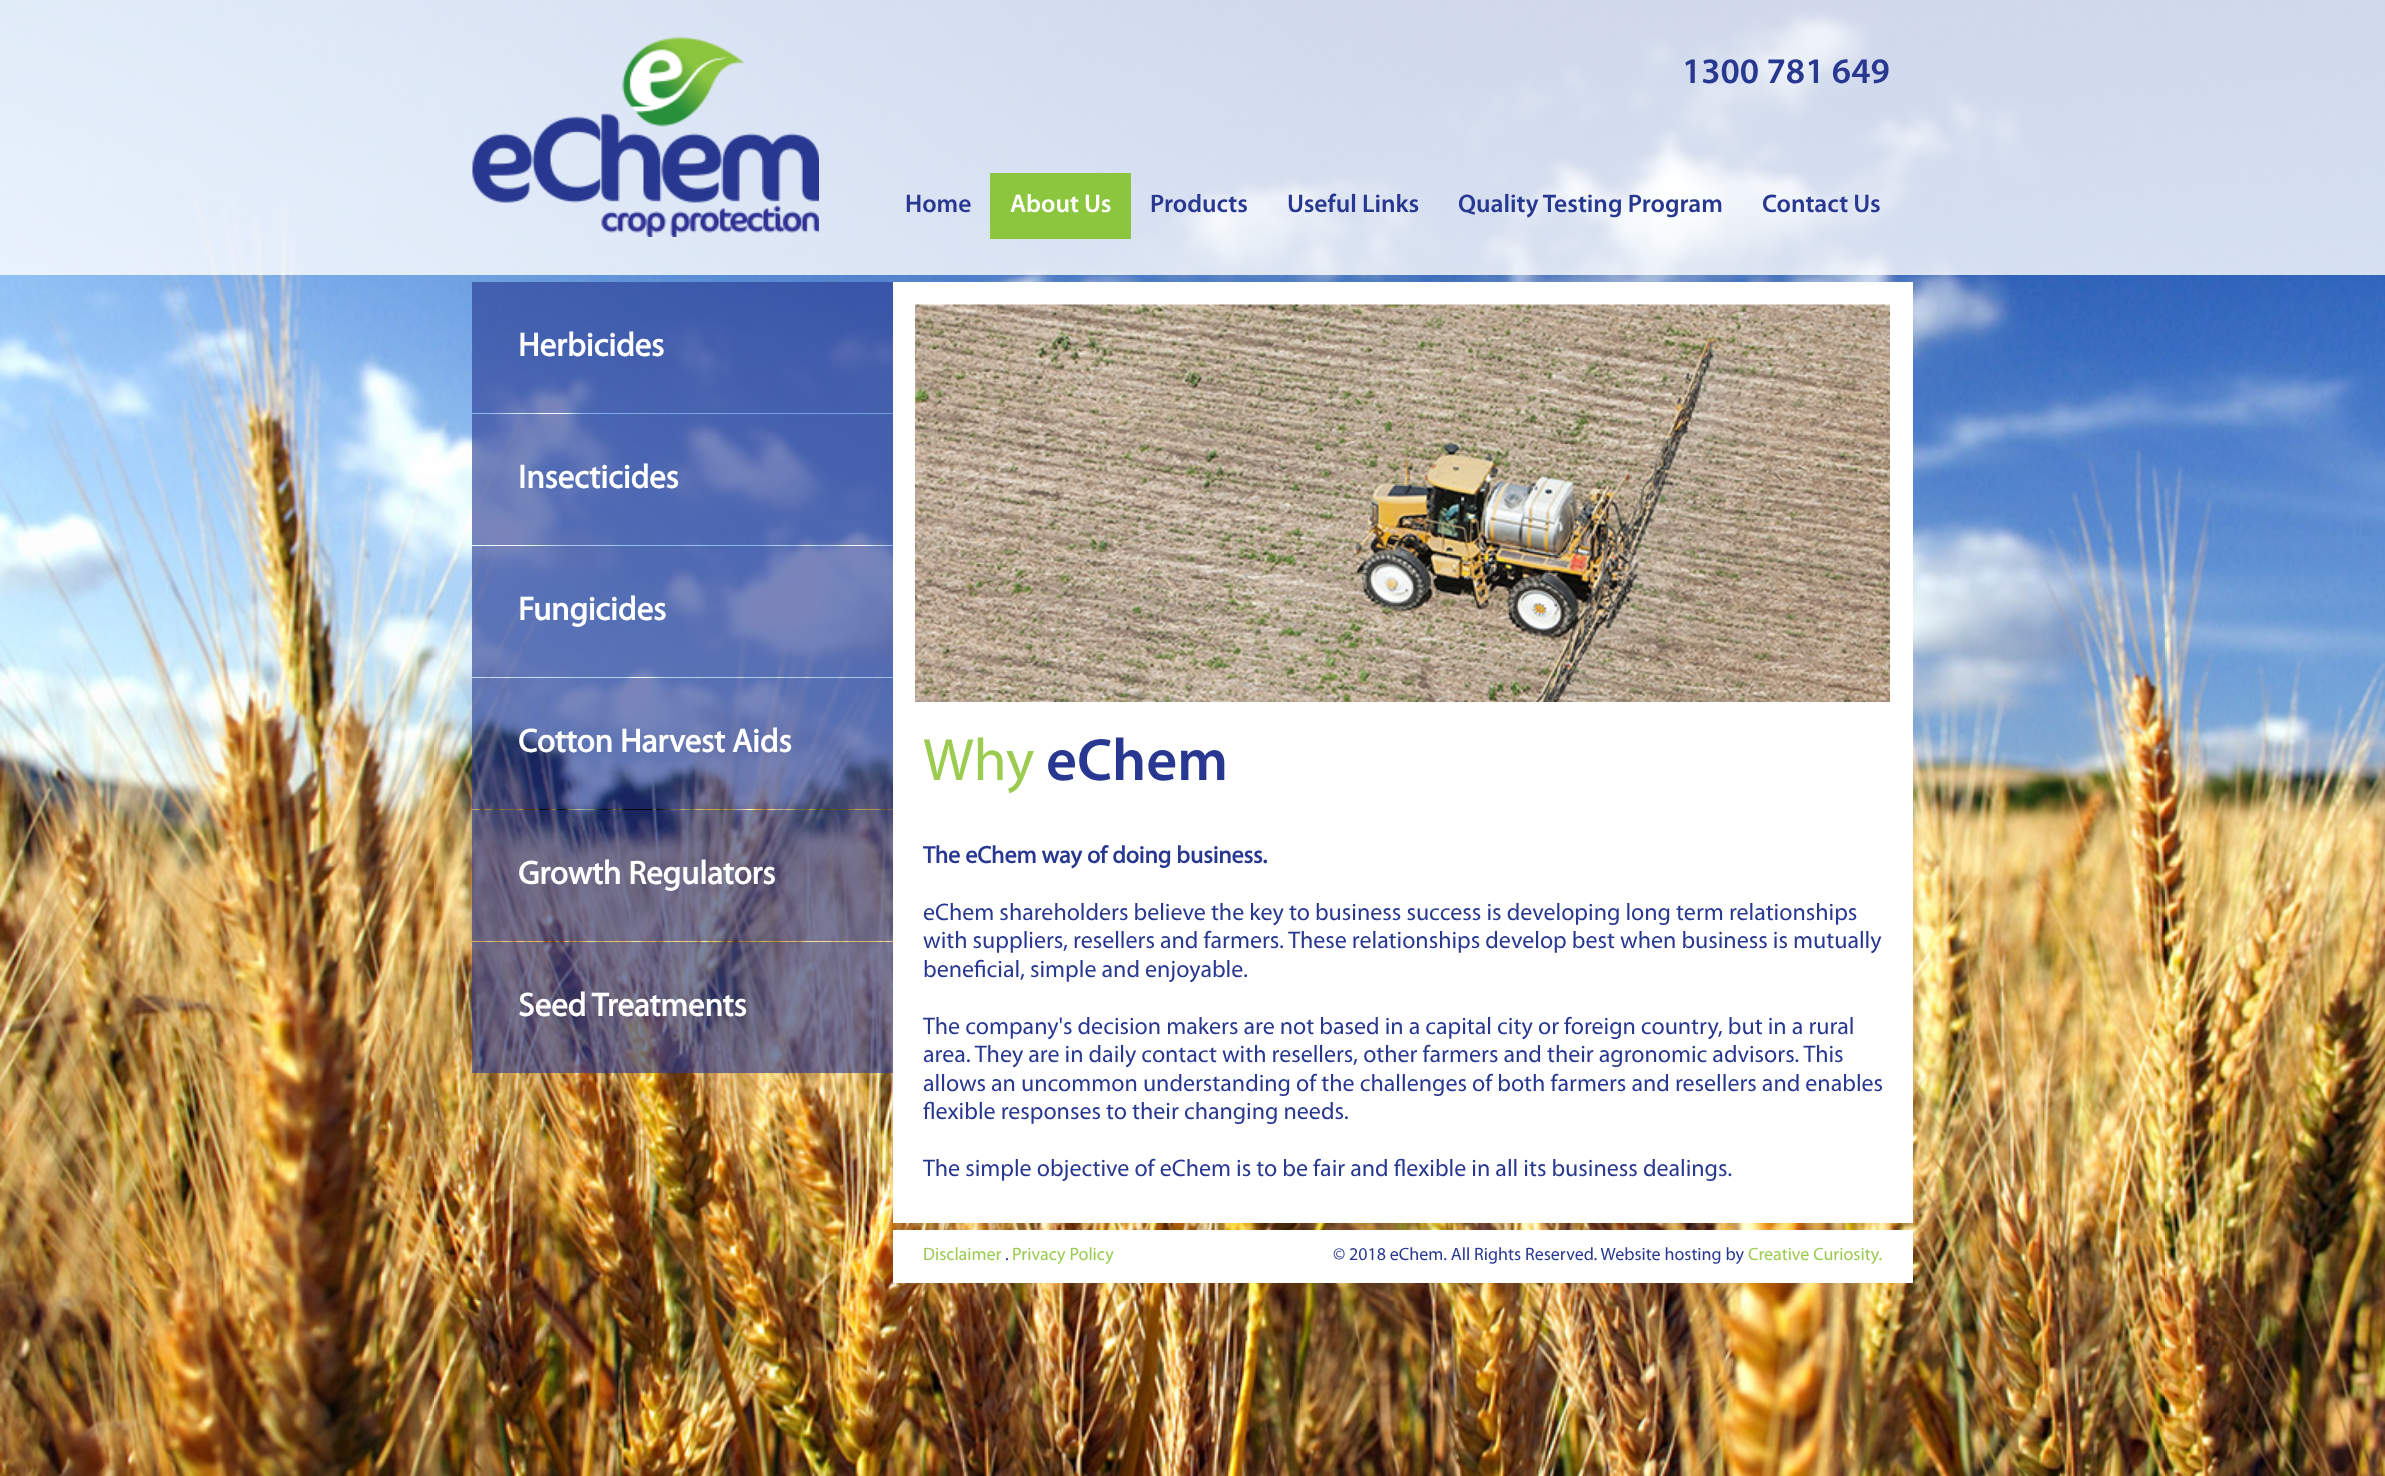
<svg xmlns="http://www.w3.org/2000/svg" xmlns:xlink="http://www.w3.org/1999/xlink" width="2385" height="1476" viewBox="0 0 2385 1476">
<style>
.cls-1{font:600 36px Myriad;fill:#283891}
.cls-2{font:600 25.5px Myriad;fill:#283891}
.cls-3{font:600 25.5px Myriad;fill:#ffffff}
.cls-4{font:bold 33px Myriad;fill:#ffffff}
.cls-5{font:60px Myriad;fill:#9bcc50}
.cls-6{font:600 60px Myriad;fill:#283891}
.cls-7{font:bold 24px Myriad;fill:#283891}
.cls-8{font:24px Myriad;fill:#283891}
.cls-9{font:18px Myriad;fill:#9bcc50}
.cls-10{font:18px Myriad;fill:#283891}
</style>
<rect width="100%" height="100%" fill="#ffffff"/>
<image xlink:href="image0.png" x="0" y="0" width="2385" height="1476"/>
<rect fill="#ffffff" fill-opacity="0.8" x="0" y="0" width="2385" height="275"/>
<image xlink:href="image1.png" x="472" y="37" width="347" height="200"/>
<rect fill="#8cc63f" x="990" y="173" width="141" height="66"/>
<rect fill="#283891" fill-opacity="0.62" x="472" y="282" width="421" height="131"/>
<rect fill="#283891" fill-opacity="0.62" x="472" y="414" width="421" height="131"/>
<rect fill="#283891" fill-opacity="0.62" x="472" y="546" width="421" height="131"/>
<rect fill="#283891" fill-opacity="0.62" x="472" y="678" width="421" height="131"/>
<rect fill="#283891" fill-opacity="0.62" x="472" y="810" width="421" height="131"/>
<rect fill="#283891" fill-opacity="0.62" x="472" y="942" width="421" height="131"/>
<rect fill="#ffffff" x="893" y="282" width="1020" height="941"/>
<image xlink:href="image2.png" x="915" y="304" width="975" height="398"/>
<rect fill="#ffffff" x="893" y="1230" width="1020" height="53"/>
<text class="cls-1" x="1682" y="83">1300 781 649</text>
<text class="cls-2" x="905" y="212">Home</text>
<text class="cls-3" x="1010" y="212">About Us</text>
<text class="cls-2" x="1150" y="212">Products</text>
<text class="cls-2" x="1287" y="212">Useful Links</text>
<text class="cls-2" x="1458" y="212">Quality Testing Program</text>
<text class="cls-2" x="1762" y="212">Contact Us</text>
<text class="cls-4" x="518" y="356">Herbicides</text>
<text class="cls-4" x="518" y="488">Insecticides</text>
<text class="cls-4" x="518" y="620">Fungicides</text>
<text class="cls-4" x="518" y="752">Cotton Harvest Aids</text>
<text class="cls-4" x="518" y="884">Growth Regulators</text>
<text class="cls-4" x="518" y="1016">Seed Treatments</text>
<text class="cls-5" x="923" y="780">Why</text>
<text class="cls-6" x="1046" y="780">eChem</text>
<text class="cls-7" x="923" y="863">The eChem way of doing business.</text>
<text class="cls-8"><tspan x="923" y="920">eChem shareholders believe the key to business success is developing long term relationships</tspan><tspan x="923" y="948">with suppliers, resellers and farmers. These relationships develop best when business is mutually</tspan><tspan x="923" y="977">beneficial, simple and enjoyable.</tspan></text>
<text class="cls-8"><tspan x="923" y="1034">The company's decision makers are not based in a capital city or foreign country, but in a rural</tspan><tspan x="923" y="1062">area. They are in daily contact with resellers, other farmers and their agronomic advisors. This</tspan><tspan x="923" y="1091">allows an uncommon understanding of the challenges of both farmers and resellers and enables</tspan><tspan x="923" y="1119">flexible responses to their changing needs.</tspan></text>
<text class="cls-8" x="923" y="1176">The simple objective of eChem is to be fair and flexible in all its business dealings.</text>
<text class="cls-9" x="923" y="1260">Disclaimer</text>
<text class="cls-10" x="1005" y="1260">.</text>
<text class="cls-9" x="1012" y="1260">Privacy Policy</text>
<text class="cls-10" x="1333" y="1260">© 2018 eChem. All Rights Reserved. Website hosting by</text>
<text class="cls-9" x="1748" y="1260">Creative Curiosity.</text>
</svg>
